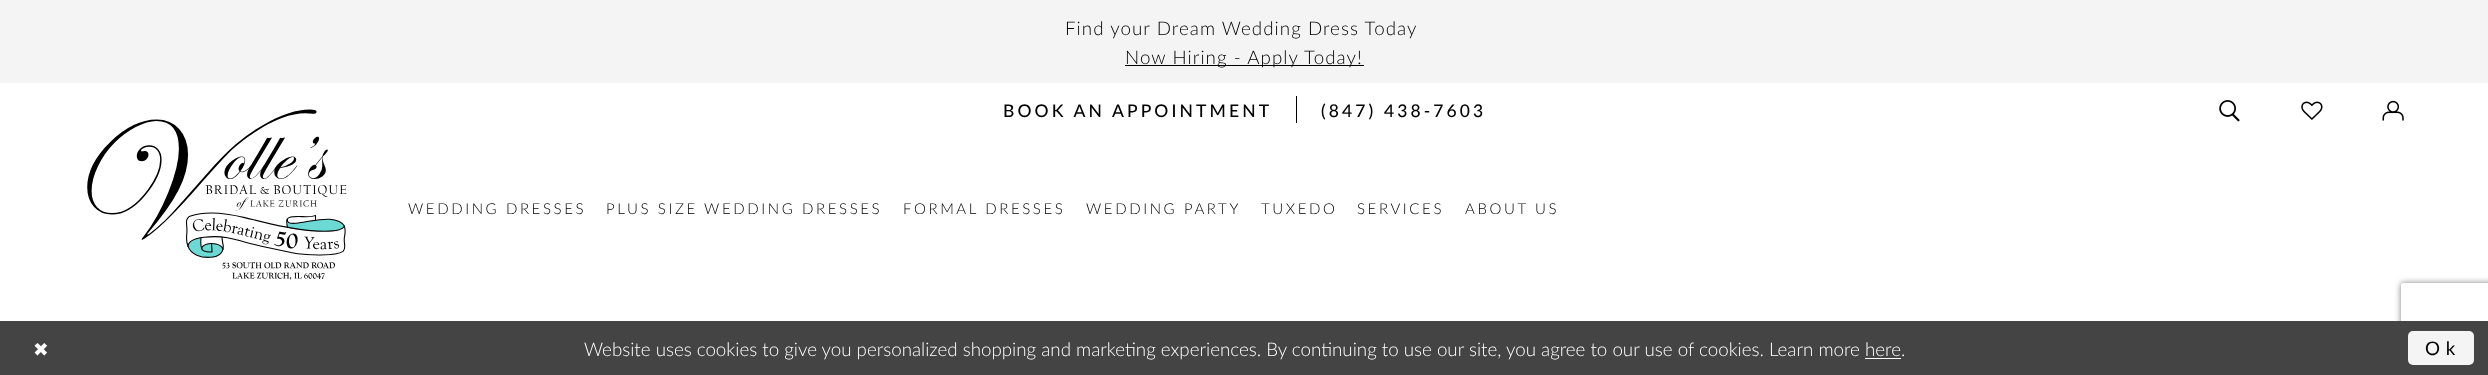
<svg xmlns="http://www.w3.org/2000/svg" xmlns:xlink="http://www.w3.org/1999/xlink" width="2488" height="375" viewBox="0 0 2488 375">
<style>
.cls-1{font:300 18.75px Lato;letter-spacing:1.05px;fill:#000000}
.cls-2{font:500 17.5px Lato;letter-spacing:3.1px;fill:#000000}
.cls-3{font:300 15px Lato;letter-spacing:2.6px;fill:#000000}
.cls-4{font:18.75px DejaVu Sans;letter-spacing:6px;fill:#ffffff}
.cls-5{font:300 18.75px Lato;fill:#ffffff}
.cls-6{font:18.75px Lato;letter-spacing:6px;fill:#000000}
</style>
<defs>
<clipPath id="clip1"><path d="M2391 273H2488V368H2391ZM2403.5 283H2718.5C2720 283 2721 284 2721 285.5V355.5C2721 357 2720 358 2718.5 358H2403.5C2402 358 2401 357 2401 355.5V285.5C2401 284 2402 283 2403.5 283Z" clip-rule="evenodd"/></clipPath>
</defs>
<rect width="100%" height="100%" fill="#ffffff"/>
<rect fill="#f4f4f4" x="0" y="0" width="2488" height="83"/>
<rect fill="#000000" x="1125" y="65" width="239" height="1"/>
<rect fill="#000000" x="1296" y="96" width="1" height="27"/>
<image xlink:href="image0.png" x="2219" y="100" width="21" height="22"/>
<image xlink:href="image1.png" x="2301" y="101" width="22" height="19"/>
<image xlink:href="image2.png" x="2382" y="100" width="22" height="21"/>
<image xlink:href="image3.png" x="87" y="109" width="260" height="171"/>
<g clip-path="url(#clip1)">
<rect fill="#808080" filter="blur(3px)" x="2401" y="283" width="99" height="75" rx="2.5"/>
</g>
<rect fill="#444444" x="0" y="321" width="2488" height="54"/>
<rect fill="#ffffff" x="1865" y="358" width="36" height="1"/>
<rect fill="#f4f4f4" x="2408" y="331" width="66" height="34" rx="5"/>
<text class="cls-1" x="1065" y="35">Find your Dream Wedding Dress Today</text>
<text class="cls-1" x="1125" y="64">Now Hiring - Apply Today!</text>
<text class="cls-2" x="1003" y="117">BOOK AN APPOINTMENT</text>
<text class="cls-2" x="1321" y="117">(847) 438-7603</text>
<text class="cls-3" x="408" y="214">WEDDING DRESSES</text>
<text class="cls-3" x="606" y="214">PLUS SIZE WEDDING DRESSES</text>
<text class="cls-3" x="903" y="214">FORMAL DRESSES</text>
<text class="cls-3" x="1086" y="214">WEDDING PARTY</text>
<text class="cls-3" x="1261" y="214">TUXEDO</text>
<text class="cls-3" x="1357" y="214">SERVICES</text>
<text class="cls-3" x="1465" y="214">ABOUT US</text>
<text class="cls-4" x="33" y="356">✖</text>
<text class="cls-5" x="584" y="356">Website uses cookies to give you personalized shopping and marketing experiences. By continuing to use our site, you agree to our use of cookies. Learn more here.</text>
<text class="cls-6" x="2425" y="355">Ok</text>
</svg>
